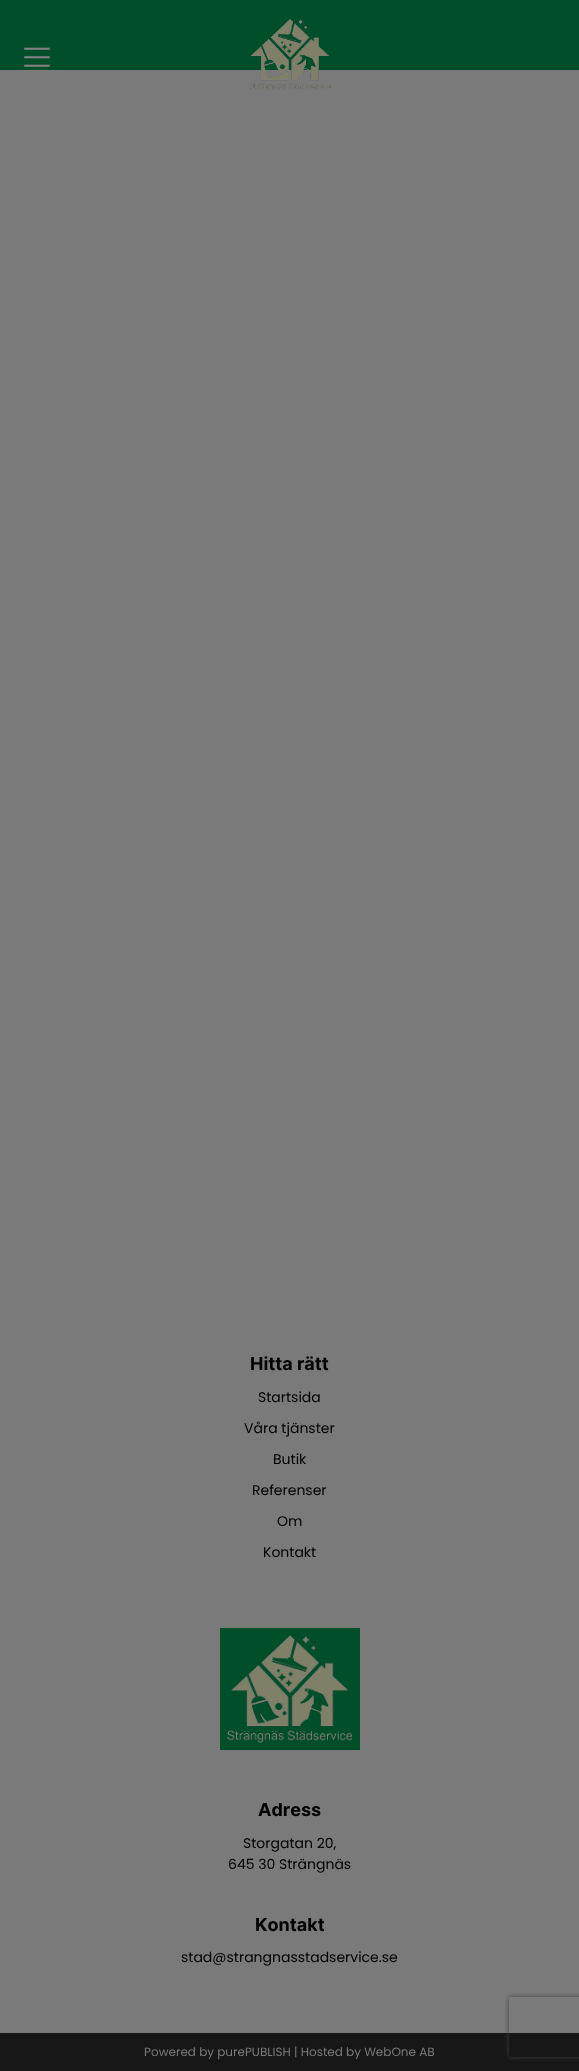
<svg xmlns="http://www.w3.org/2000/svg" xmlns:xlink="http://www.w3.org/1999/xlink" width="579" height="2071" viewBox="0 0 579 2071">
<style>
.cls-1{font:18px Konkhmer Sleokchher;fill:#000000}
.cls-2{font:14px Poppins;fill:#000000}
.cls-3{font:12px Poppins;fill:#7a7a7a}
</style>
<defs>
<clipPath id="clip1"><path d="M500 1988H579V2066H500ZM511 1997H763C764 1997 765 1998 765 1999V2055C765 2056 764 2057 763 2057H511C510 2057 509 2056 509 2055V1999C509 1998 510 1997 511 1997Z" clip-rule="evenodd"/></clipPath>
</defs>
<rect width="100%" height="100%" fill="#7a7a7a"/>
<rect fill="#004f2a" x="0" y="0" width="579" height="70"/>
<image xlink:href="image0.png" x="24" y="47" width="26" height="20"/>
<image xlink:href="image1.png" x="248" y="19" width="84" height="72"/>
<image xlink:href="image2.png" x="220" y="1628" width="140" height="122"/>
<rect fill="#171718" x="0" y="2033" width="579" height="38"/>
<g clip-path="url(#clip1)">
<rect fill="#404040" filter="blur(2.5px)" x="509" y="1997" width="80" height="60" rx="2"/>
</g>
<text class="cls-1" x="250" y="1370">Hitta rätt</text>
<text class="cls-2" x="258" y="1402">Startsida</text>
<text class="cls-2" x="244" y="1433">Våra tjänster</text>
<text class="cls-2" x="273" y="1464">Butik</text>
<text class="cls-2" x="252" y="1495">Referenser</text>
<text class="cls-2" x="277" y="1526">Om</text>
<text class="cls-2" x="263" y="1557">Kontakt</text>
<text class="cls-1" x="258" y="1816">Adress</text>
<text class="cls-2" x="243" y="1848">Storgatan 20,</text>
<text class="cls-2" x="228" y="1869">645 30 Strängnäs</text>
<text class="cls-1" x="255" y="1931">Kontakt</text>
<text class="cls-2" x="181" y="1962">stad@strangnasstadservice.se</text>
<text class="cls-3" x="144" y="2056">Powered by purePUBLISH | Hosted by WebOne AB</text>
</svg>
